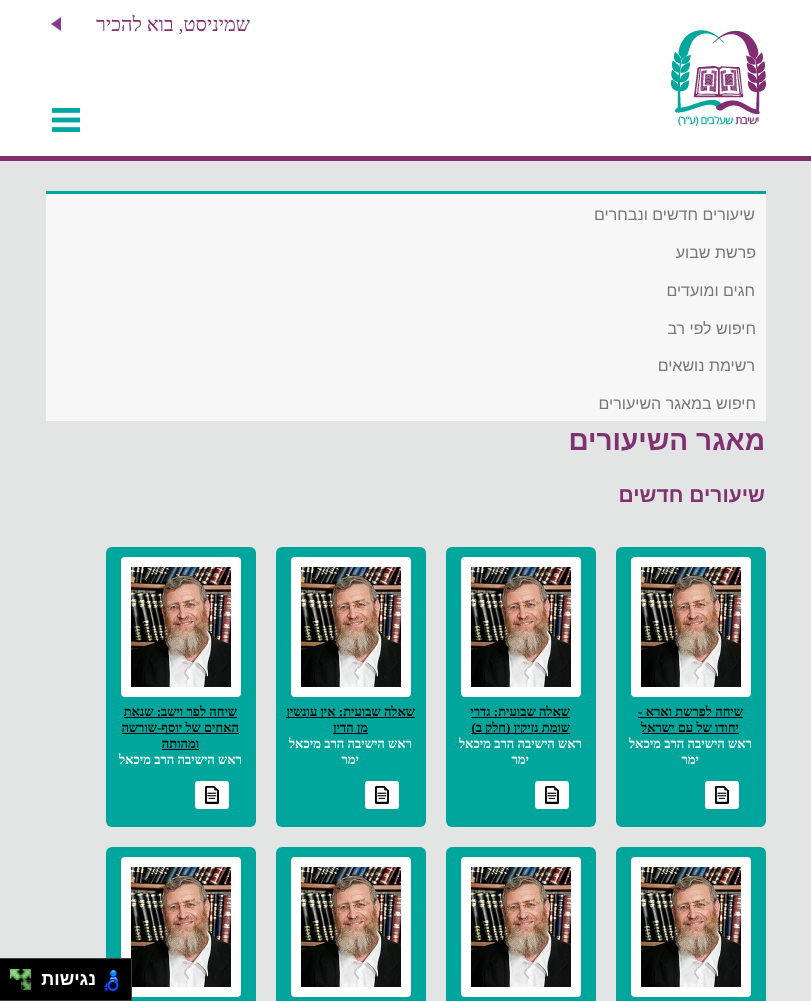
<svg xmlns="http://www.w3.org/2000/svg" xmlns:xlink="http://www.w3.org/1999/xlink" width="811" height="1001" viewBox="0 0 811 1001">
<style>
.cls-1{font:20px Liberation Serif;direction:rtl;fill:#803170}
.cls-2{font:16px Liberation Sans;direction:rtl;fill:#757779}
.cls-3{font:bold 28px Liberation Sans;direction:rtl;fill:#803170}
.cls-4{font:bold 21px Liberation Sans;direction:rtl;fill:#803170}
.cls-5{font:bold 13px Liberation Serif;direction:rtl;fill:#000000}
.cls-6{font:bold 13px Liberation Serif;direction:rtl;fill:#ffffff}
.cls-7{font:bold 18px Liberation Sans;direction:rtl;fill:#ffffff}
</style>
<defs>
<clipPath id="clip1"><rect x="0" y="959" width="132" height="42"/></clipPath>
</defs>
<rect width="100%" height="100%" fill="#ffffff"/>
<image xlink:href="image0.png" x="51" y="17" width="10" height="14"/>
<image xlink:href="image1.png" x="671" y="30" width="95" height="96"/>
<image xlink:href="image2.png" x="52" y="108" width="28" height="24"/>
<rect fill="#e3e4e4" x="0" y="161" width="811" height="840"/>
<rect fill="#803170" x="0" y="156" width="811" height="5"/>
<rect fill="#f7f7f7" x="46" y="194" width="720" height="227"/>
<rect fill="#00a69c" x="46" y="191" width="720" height="3"/>
<rect fill="#00a69c" x="616" y="547" width="150" height="280" rx="6"/>
<rect fill="#ffffff" x="631" y="557" width="120" height="140" rx="4"/>
<image xlink:href="image3.png" x="641" y="567" width="100" height="120"/>
<rect fill="#000000" x="638" y="717" width="105" height="1"/>
<rect fill="#000000" x="642" y="733" width="97" height="1"/>
<rect fill="#ffffff" x="705" y="781" width="34" height="28" rx="3"/>
<image xlink:href="image4.png" x="715" y="786" width="14" height="18"/>
<rect fill="#00a69c" x="446" y="547" width="150" height="280" rx="6"/>
<rect fill="#ffffff" x="461" y="557" width="120" height="140" rx="4"/>
<image xlink:href="image3.png" x="471" y="567" width="100" height="120"/>
<rect fill="#000000" x="471" y="717" width="99" height="1"/>
<rect fill="#000000" x="471" y="733" width="99" height="1"/>
<rect fill="#ffffff" x="535" y="781" width="34" height="28" rx="3"/>
<image xlink:href="image4.png" x="545" y="786" width="14" height="18"/>
<rect fill="#00a69c" x="276" y="547" width="150" height="280" rx="6"/>
<rect fill="#ffffff" x="291" y="557" width="120" height="140" rx="4"/>
<image xlink:href="image3.png" x="301" y="567" width="100" height="120"/>
<rect fill="#000000" x="286" y="717" width="129" height="1"/>
<rect fill="#000000" x="333" y="733" width="35" height="1"/>
<rect fill="#ffffff" x="365" y="781" width="34" height="28" rx="3"/>
<image xlink:href="image4.png" x="375" y="786" width="14" height="18"/>
<rect fill="#00a69c" x="106" y="547" width="150" height="280" rx="6"/>
<rect fill="#ffffff" x="121" y="557" width="120" height="140" rx="4"/>
<image xlink:href="image3.png" x="131" y="567" width="100" height="120"/>
<rect fill="#000000" x="124" y="717" width="113" height="1"/>
<rect fill="#000000" x="122" y="733" width="117" height="1"/>
<rect fill="#000000" x="162" y="749" width="37" height="1"/>
<rect fill="#ffffff" x="195" y="781" width="34" height="28" rx="3"/>
<image xlink:href="image4.png" x="205" y="786" width="14" height="18"/>
<rect fill="#00a69c" x="616" y="847" width="150" height="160" rx="6"/>
<rect fill="#ffffff" x="631" y="857" width="120" height="140" rx="4"/>
<image xlink:href="image3.png" x="641" y="867" width="100" height="120"/>
<rect fill="#00a69c" x="446" y="847" width="150" height="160" rx="6"/>
<rect fill="#ffffff" x="461" y="857" width="120" height="140" rx="4"/>
<image xlink:href="image3.png" x="471" y="867" width="100" height="120"/>
<rect fill="#00a69c" x="276" y="847" width="150" height="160" rx="6"/>
<rect fill="#ffffff" x="291" y="857" width="120" height="140" rx="4"/>
<image xlink:href="image3.png" x="301" y="867" width="100" height="120"/>
<rect fill="#00a69c" x="106" y="847" width="150" height="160" rx="6"/>
<rect fill="#ffffff" x="121" y="857" width="120" height="140" rx="4"/>
<image xlink:href="image3.png" x="131" y="867" width="100" height="120"/>
<path fill="#404040" d="M-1 958V1000H0V959H131V958Z"/>
<rect fill="#000000" x="0" y="959" width="131" height="41"/>
<g clip-path="url(#clip1)">
<path fill="#404040" fill-rule="evenodd" d="M-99 860H231V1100H-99ZM-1 958H131V1000H-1Z"/>
</g>
<image xlink:href="image5.png" x="104" y="970" width="15" height="21"/>
<image xlink:href="image6.png" x="21" y="969" width="10" height="11"/>
<image xlink:href="image7.png" x="10" y="969" width="11" height="11"/>
<image xlink:href="image8.png" x="21" y="980" width="10" height="10"/>
<text class="cls-1" x="250" y="31">שמיניסט, בוא להכיר</text>
<text class="cls-2" x="755" y="220">שיעורים חדשים ונבחרים</text>
<text class="cls-2" x="756" y="258">פרשת שבוע</text>
<text class="cls-2" x="755" y="296">חגים ומועדים</text>
<text class="cls-2" x="756" y="334">חיפוש לפי רב</text>
<text class="cls-2" x="755" y="371">רשימת נושאים</text>
<text class="cls-2" x="756" y="409">חיפוש במאגר השיעורים</text>
<text class="cls-3" x="765" y="450">מאגר השיעורים</text>
<text class="cls-4" x="765" y="502">שיעורים חדשים</text>
<text class="cls-5" x="743" y="716">שיחה לפרשת וארא -</text>
<text class="cls-5" x="739" y="732">יחודו של עם ישראל</text>
<text class="cls-6" x="752" y="748">ראש הישיבה הרב מיכאל</text>
<text class="cls-6" x="699" y="764">ימר</text>
<text class="cls-5"><tspan x="570" y="716">שאלה שבועית: גדרי</tspan><tspan x="570" y="732">שומת נזיקין (חלק ב)</tspan></text>
<text class="cls-6" x="582" y="748">ראש הישיבה הרב מיכאל</text>
<text class="cls-6" x="529" y="764">ימר</text>
<text class="cls-5" x="415" y="716">שאלה שבועית: אין עונשין</text>
<text class="cls-5" x="368" y="732">מן הדין</text>
<text class="cls-6" x="412" y="748">ראש הישיבה הרב מיכאל</text>
<text class="cls-6" x="359" y="764">ימר</text>
<text class="cls-5" x="237" y="716">שיחה לפר וישב: שנאת</text>
<text class="cls-5" x="239" y="732">האחים של יוסף-שורשה</text>
<text class="cls-5" x="199" y="748">ומהותה</text>
<text class="cls-6" x="242" y="764">ראש הישיבה הרב מיכאל</text>
<text class="cls-7" x="96" y="985">נגישות</text>
</svg>
